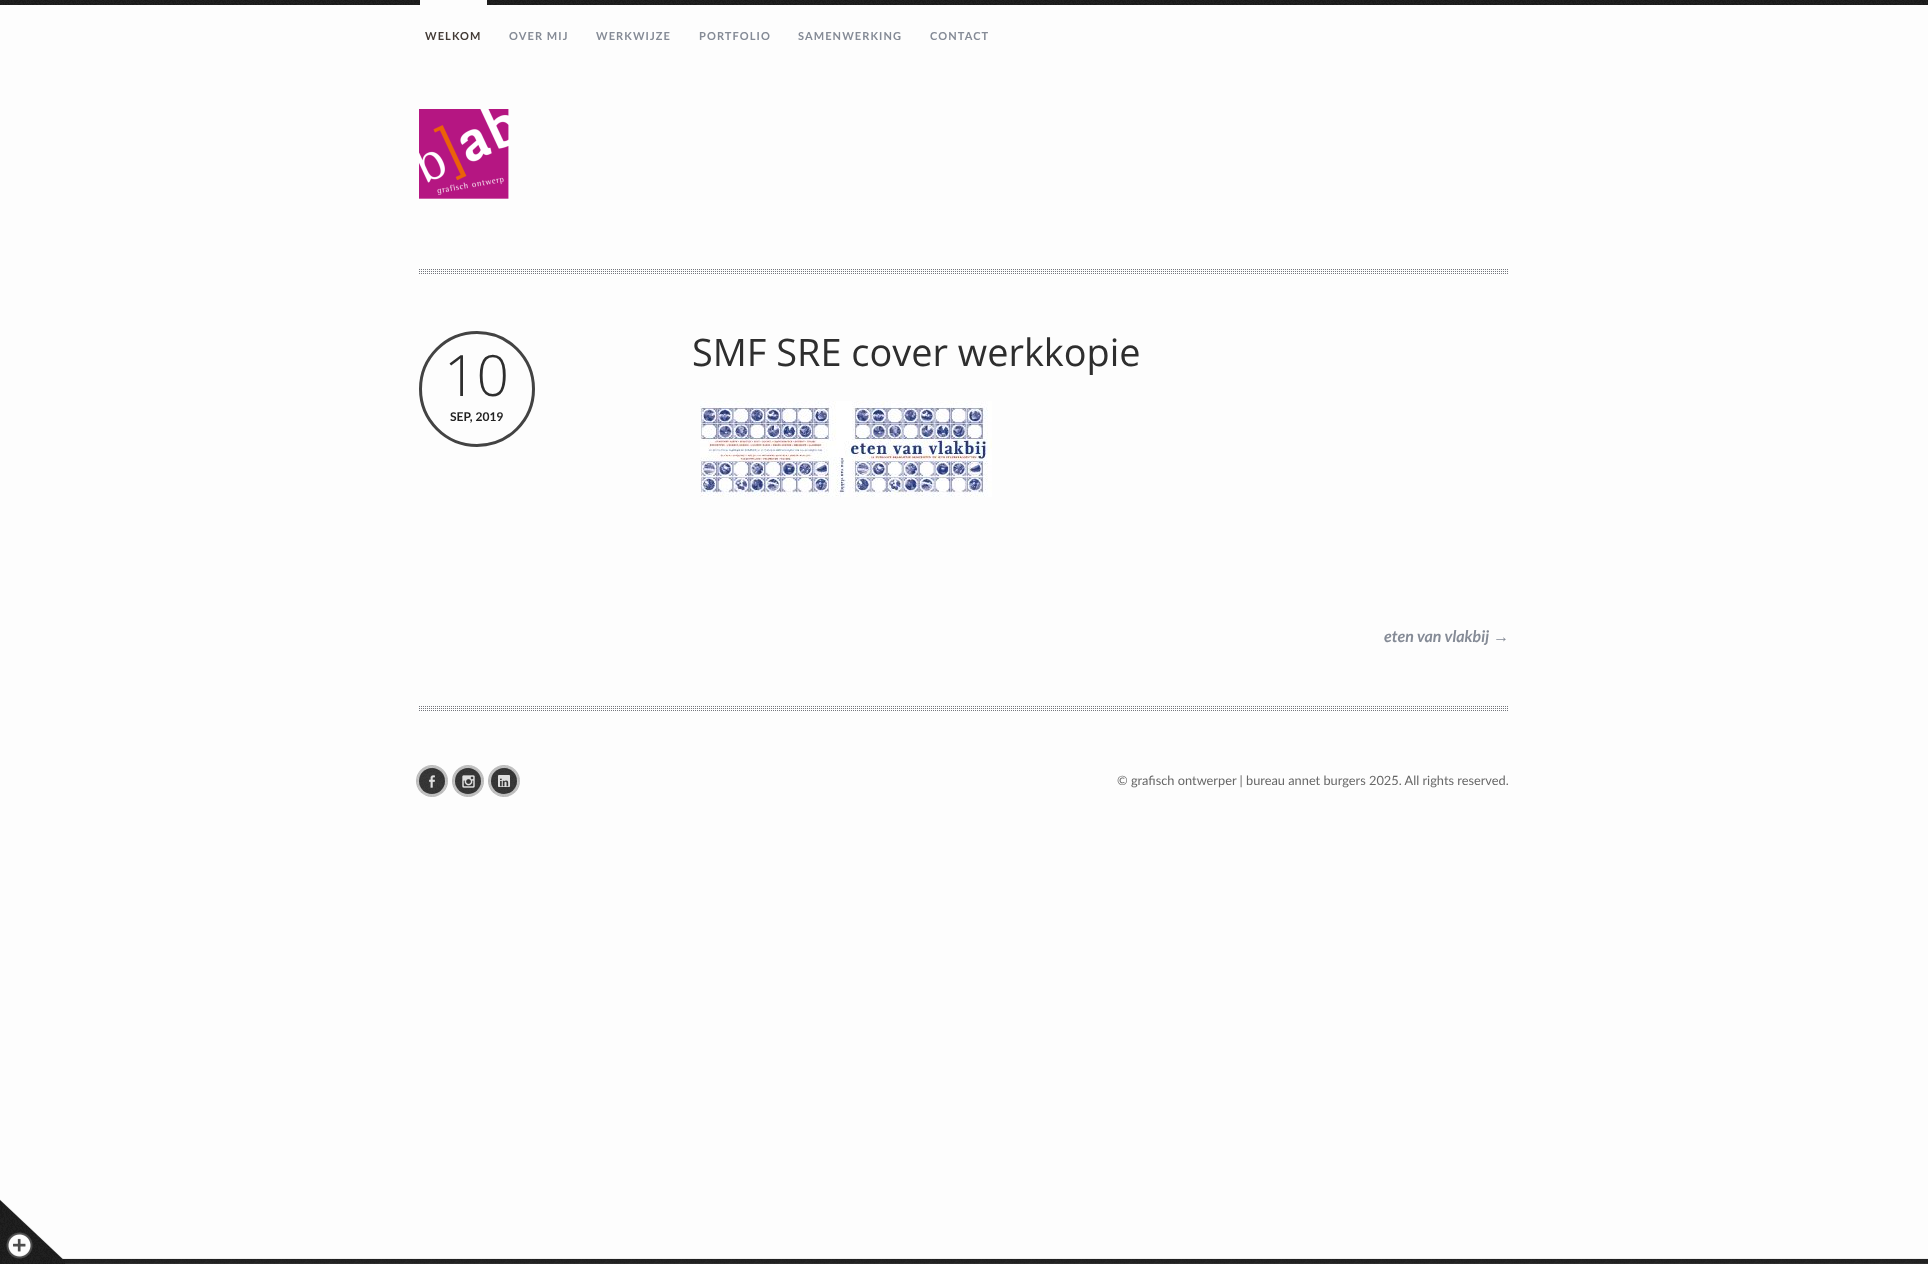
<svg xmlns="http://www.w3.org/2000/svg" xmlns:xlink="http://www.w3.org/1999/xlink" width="1928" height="1264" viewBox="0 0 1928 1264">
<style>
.cls-1{font:bold 11px Lato;letter-spacing:1.1px;fill:#423a35}
.cls-2{font:bold 11px Lato;letter-spacing:1.1px;fill:#858b96}
.cls-3{font:300 57px Open Sans;fill:#2e2e2e}
.cls-4{font:bold 12px Lato;fill:#222222}
.cls-5{font:37.9px Open Sans;fill:#2e2e2e}
.cls-6{font:italic bold 16px Lato;fill:#858b96}
.cls-7{font:italic bold 16px Liberation Sans;fill:#858b96}
.cls-8{font:12.8px Lato;fill:#676767}
</style>
<rect width="100%" height="100%" fill="#fdfdfd"/>
<image xlink:href="image0.png" x="0" y="0" width="1928" height="5"/>
<image xlink:href="image1.png" x="419" y="269" width="1089" height="5"/>
<rect fill="#fdfdfd" x="420" y="0" width="67" height="5"/>
<image xlink:href="image2.png" x="419" y="109" width="90" height="90"/>
<circle fill="none" stroke="#434343" stroke-width="3" cx="477" cy="389" r="56.5"/>
<image xlink:href="image3.png" x="700" y="401" width="292" height="96"/>
<image xlink:href="image1.png" x="419" y="706" width="1089" height="5"/>
<circle fill="#e1e1e1" cx="432" cy="781" r="16"/>
<image xlink:href="image4.png" x="416" y="765" width="32" height="32"/>
<image xlink:href="image5.png" x="419" y="768" width="26" height="26"/>
<image xlink:href="image6.png" x="429" y="775" width="6" height="13"/>
<circle fill="#e1e1e1" cx="468" cy="781" r="16"/>
<image xlink:href="image4.png" x="452" y="765" width="32" height="32"/>
<image xlink:href="image5.png" x="455" y="768" width="26" height="26"/>
<image xlink:href="image7.png" x="462" y="775" width="13" height="13"/>
<circle fill="#e1e1e1" cx="504" cy="781" r="16"/>
<image xlink:href="image8.png" x="488" y="765" width="32" height="32"/>
<image xlink:href="image9.png" x="491" y="768" width="26" height="26"/>
<image xlink:href="image10.png" x="498" y="775" width="12" height="12"/>
<image xlink:href="image11.png" x="0" y="1263" width="1928" height="1"/>
<image xlink:href="image13.png" x="0" y="1258" width="1928" height="6"/>
<image xlink:href="image12.png" x="0" y="1199" width="65" height="65"/>
<text class="cls-1" x="425" y="40">WELKOM</text>
<text class="cls-2" x="509" y="40">OVER MIJ</text>
<text class="cls-2" x="596" y="40">WERKWIJZE</text>
<text class="cls-2" x="699" y="40">PORTFOLIO</text>
<text class="cls-2" x="798" y="40">SAMENWERKING</text>
<text class="cls-2" x="930" y="40">CONTACT</text>
<text class="cls-3" x="444" y="396">10</text>
<text class="cls-4" x="450" y="421">SEP, 2019</text>
<text class="cls-5" x="692" y="366">SMF SRE cover werkkopie</text>
<text class="cls-6" x="1384" y="642">eten van vlakbij</text>
<text class="cls-7" x="1493" y="642">→</text>
<text class="cls-8" x="1117" y="785">© grafisch ontwerper | bureau annet burgers 2025. All rights reserved.</text>
</svg>
